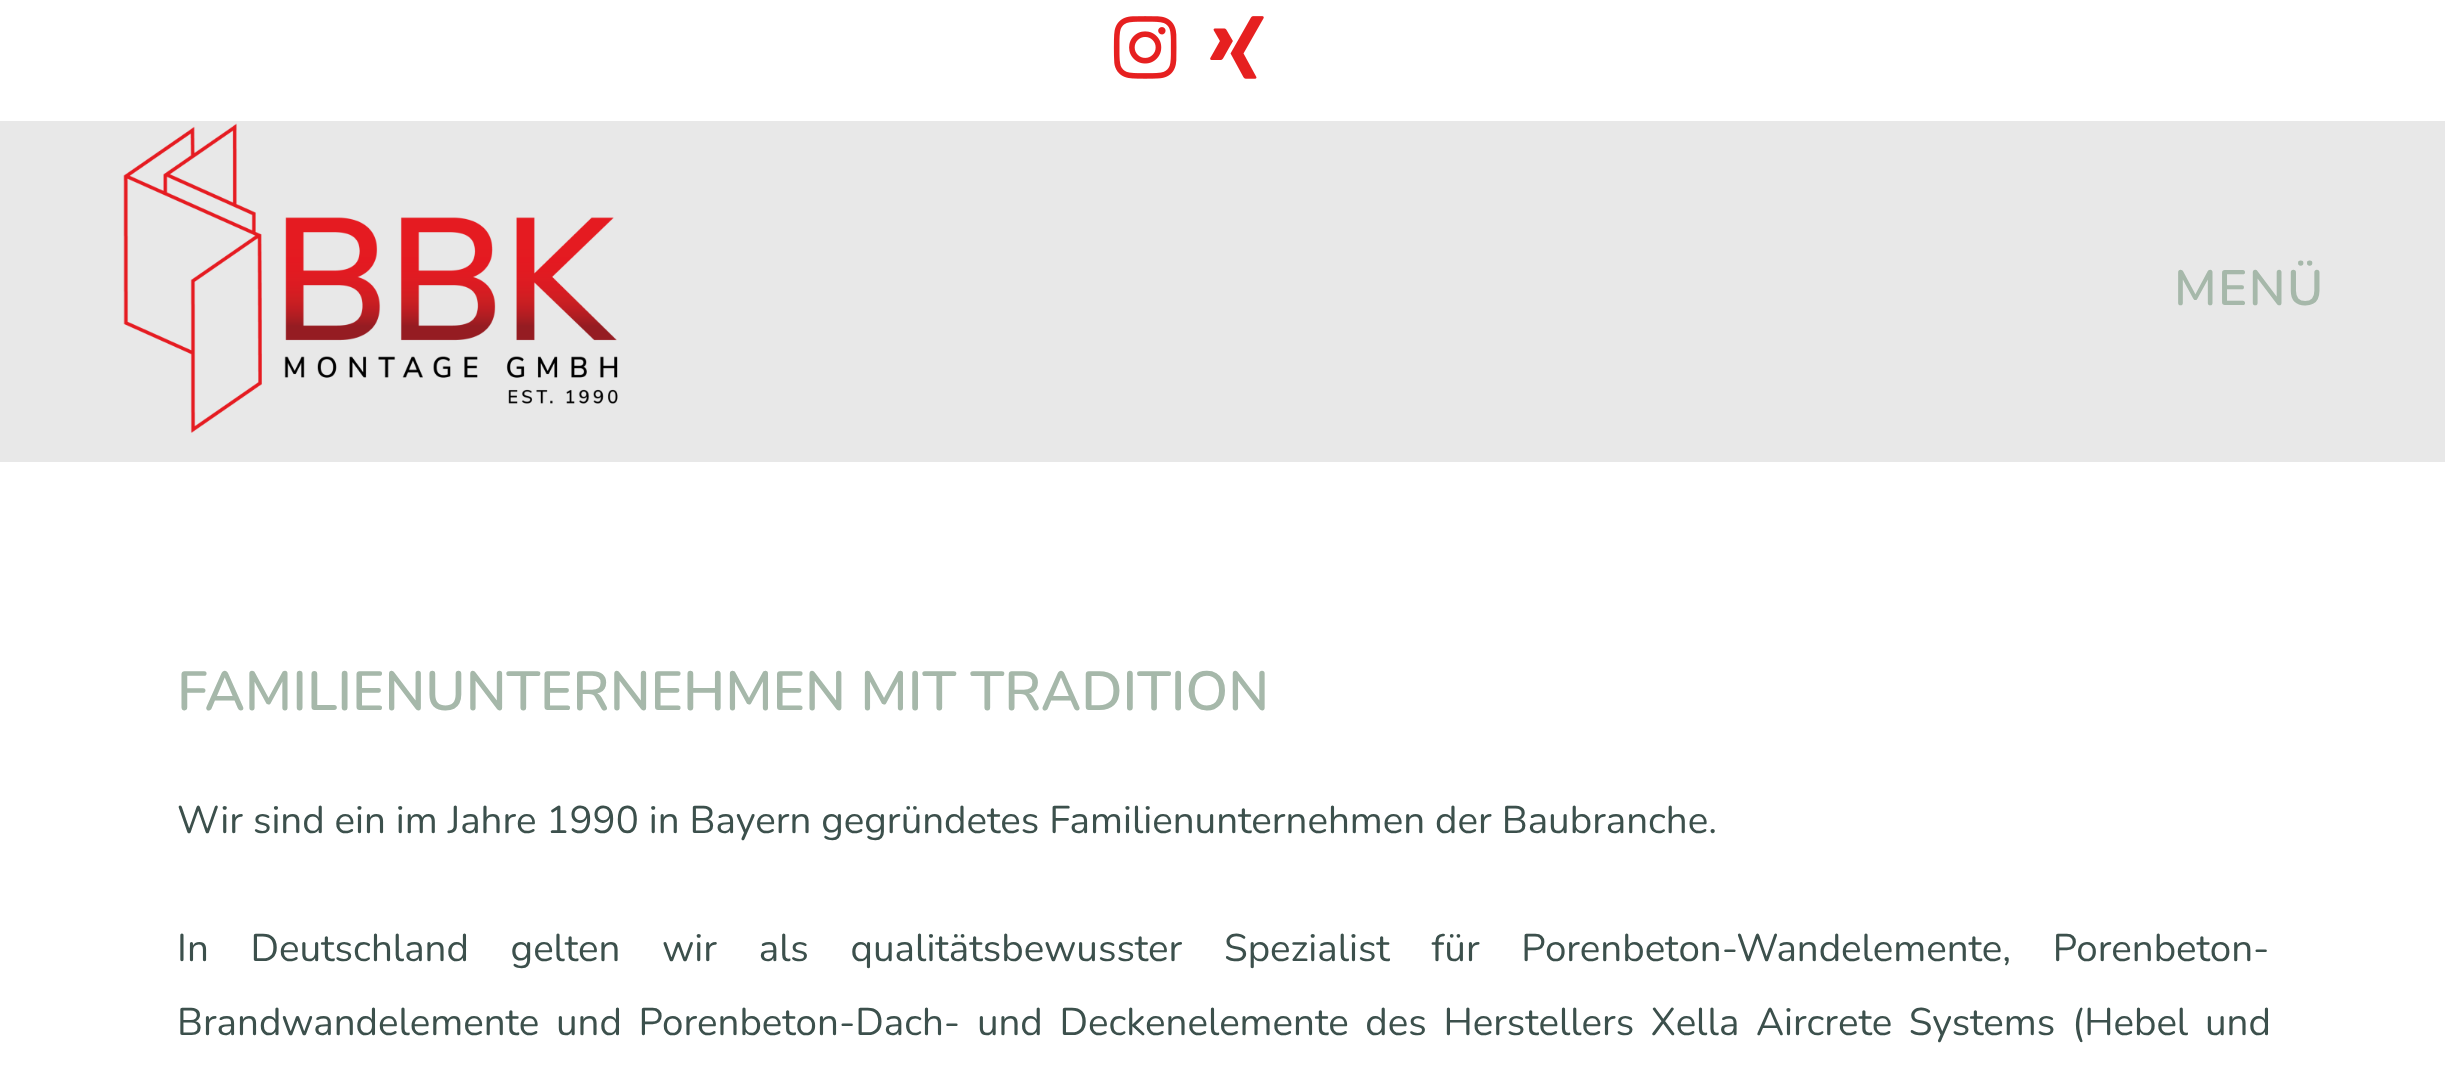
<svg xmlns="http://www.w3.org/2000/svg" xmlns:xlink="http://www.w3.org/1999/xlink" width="2445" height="1078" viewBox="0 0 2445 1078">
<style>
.cls-1{font:600 49.5px Nunito;letter-spacing:1.5px;fill:#a6b8aa}
.cls-2{font:600 55px Nunito;fill:#a6b8aa}
.cls-3{font:38.5px Nunito;fill:#3c504c}
</style>
<rect width="100%" height="100%" fill="#ffffff"/>
<image xlink:href="image0.png" x="1113" y="16" width="64" height="63"/>
<image xlink:href="image1.png" x="1210" y="16" width="54" height="63"/>
<rect fill="#e8e8e8" x="0" y="121" width="2445" height="341"/>
<image xlink:href="image2.png" x="123" y="123" width="495" height="310"/>
<text class="cls-1" x="2174" y="305">MENÜ</text>
<text class="cls-2" x="177" y="710">FAMILIENUNTERNEHMEN MIT TRADITION</text>
<text class="cls-3" x="177" y="833">Wir sind ein im Jahre 1990 in Bayern gegründetes Familienunternehmen der Baubranche.</text>
<text class="cls-3"><tspan x="177" y="961" word-spacing="31.75">In Deutschland gelten wir als qualitätsbewusster Spezialist für Porenbeton-Wandelemente, Porenbeton-</tspan><tspan x="177" y="1035" word-spacing="6.75">Brandwandelemente und Porenbeton-Dach- und Deckenelemente des Herstellers Xella Aircrete Systems (Hebel und</tspan></text>
</svg>
